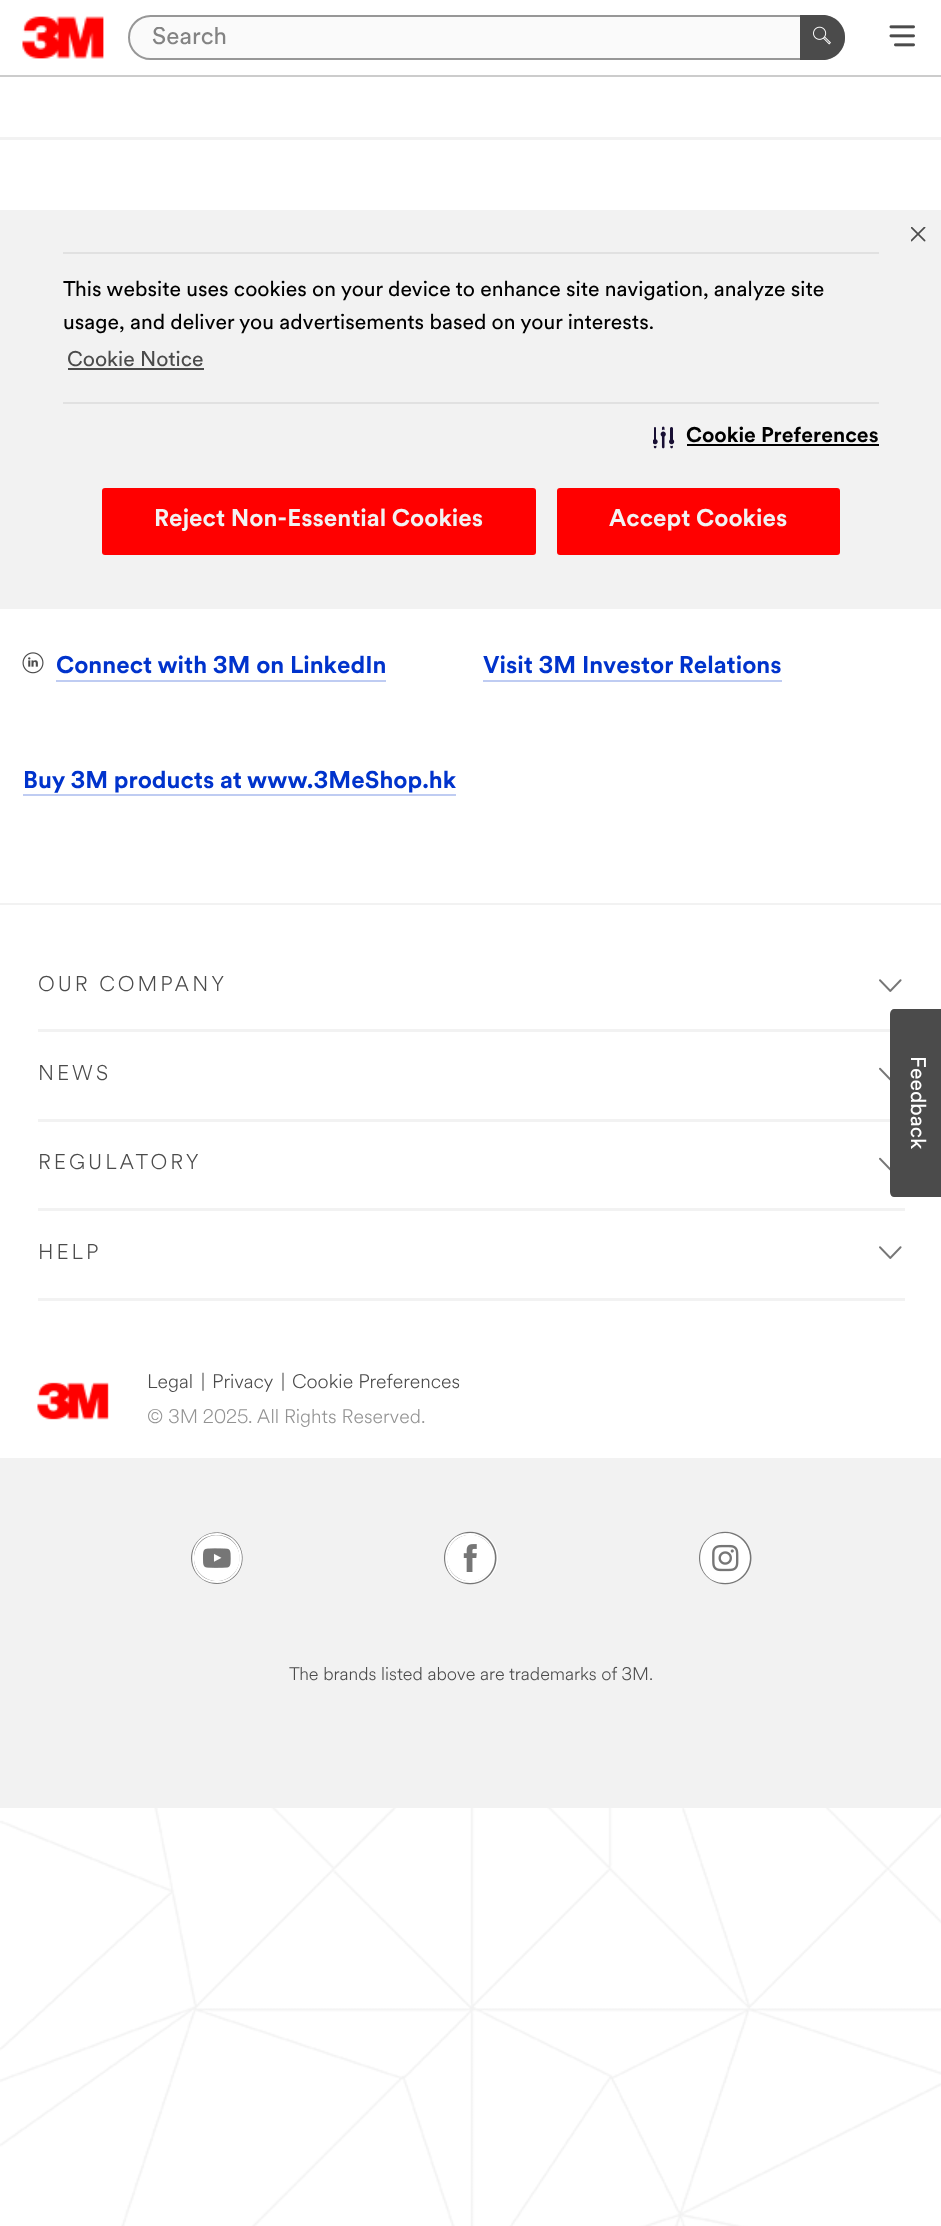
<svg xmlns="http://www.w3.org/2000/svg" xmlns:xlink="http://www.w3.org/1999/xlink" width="941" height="2226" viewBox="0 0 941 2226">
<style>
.cls-1{font:24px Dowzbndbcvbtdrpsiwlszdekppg;fill:#838383}
.cls-2{font:bold 24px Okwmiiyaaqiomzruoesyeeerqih;fill:#0033cc}
.cls-3{font:300 21px '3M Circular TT';letter-spacing:3px;fill:#4b4b4b}
.cls-4{font:300 19.5px '3M Circular TT';fill:#4b4b4b}
.cls-5{font:300 19.5px '3M Circular TT';fill:#939393}
.cls-6{font:300 18px '3M Circular TT';fill:#4b4b4b}
.cls-7{font:21px Dowzbndbcvbtdrpsiwlszdekppg;fill:#000000}
.cls-8{font:21px Dowzbndbcvbtdrpsiwlszdekppg;fill:#4b4b4b}
.cls-9{font:bold 21px Okwmiiyaaqiomzruoesyeeerqih;fill:#000000}
.cls-10{font:bold 24px Okwmiiyaaqiomzruoesyeeerqih;fill:#f2f2f2}
.cls-11{font:21px Dowzbndbcvbtdrpsiwlszdekppg;fill:#ffffff}
</style>
<defs>
<clipPath id="clip1"><rect x="152" y="27" width="640" height="24"/></clipPath>
</defs>
<rect width="100%" height="100%" fill="#ffffff"/>
<image xlink:href="image0.png" x="0" y="1808" width="941" height="418"/>
<rect fill="#f2f2f2" x="0" y="137" width="941" height="3"/>
<image xlink:href="image1.png" x="22" y="16" width="82" height="43"/>
<rect fill="#fafafa" stroke="#979797" stroke-width="2" x="129" y="16" width="715" height="43" rx="21.5"/>
<path fill="#4b4b4b" d="M800 15H822.5C835 15 845 25 845 37.5C845 50 835 60 822.5 60H800Z"/>
<image xlink:href="image2.png" x="813" y="26" width="18" height="19"/>
<image xlink:href="image3.png" x="889" y="25" width="26" height="22"/>
<rect fill="#cccccc" x="0" y="75" width="941" height="2"/>
<image xlink:href="image4.png" x="22" y="652" width="22" height="22"/>
<rect fill="#bfccf2" x="56" y="680" width="330" height="2"/>
<rect fill="#bfccf2" x="483" y="680" width="299" height="2"/>
<rect fill="#bfccf2" x="23" y="794" width="433" height="2"/>
<rect fill="#f2f2f2" x="0" y="903" width="941" height="2"/>
<rect fill="#f2f2f2" x="38" y="1029" width="852" height="3"/>
<image xlink:href="image5.png" x="879" y="979" width="23" height="13"/>
<rect fill="#f2f2f2" x="38" y="1119" width="852" height="3"/>
<image xlink:href="image6.png" x="879" y="1067" width="11" height="14"/>
<rect fill="#f2f2f2" x="38" y="1208" width="867" height="3"/>
<image xlink:href="image6.png" x="879" y="1157" width="11" height="14"/>
<rect fill="#f2f2f2" x="38" y="1298" width="867" height="3"/>
<image xlink:href="image5.png" x="879" y="1246" width="23" height="13"/>
<image xlink:href="image7.png" x="37" y="1382" width="72" height="38"/>
<rect fill="#f2f2f2" x="0" y="1458" width="941" height="350"/>
<circle fill="#ffffff" cx="217" cy="1558" r="26"/>
<image xlink:href="image8.png" x="191" y="1532" width="52" height="52"/>
<path fill="#ffffff" d="M217 1583C184 1583 184 1533 217 1533C222 1533 227 1535 232 1538C251 1553 241 1583 217 1583ZM217 1535C186 1535 187 1581 217 1581C247 1581 247 1535 217 1535Z"/>
<rect fill="#ffffff" x="444" y="1532" width="54" height="52" rx="26"/>
<image xlink:href="image9.png" x="444" y="1531" width="53" height="54"/>
<path fill="#ffffff" d="M470 1583C437 1583 437 1533 470 1533C476 1533 481 1535 485 1538C504 1553 494 1583 470 1583ZM470 1535C440 1535 440 1581 470 1581C500 1581 501 1535 470 1535Z"/>
<rect fill="#ffffff" x="699" y="1532" width="53" height="52" rx="26"/>
<image xlink:href="image10.png" x="699" y="1531" width="53" height="54"/>
<path fill="#ffffff" d="M725 1583C692 1583 692 1533 725 1533C731 1533 736 1535 740 1538C759 1553 749 1583 725 1583ZM725 1535C695 1535 695 1581 725 1581C755 1581 756 1535 725 1535Z"/>
<rect fill="#f2f2f2" x="0" y="210" width="941" height="399"/>
<rect fill="#e1e1e1" x="63" y="252" width="816" height="2"/>
<rect fill="#e1e1e1" x="63" y="402" width="816" height="2"/>
<rect fill="#4b4b4b" x="68" y="368" width="136" height="2"/>
<image xlink:href="image11.png" x="911" y="227" width="15" height="15"/>
<image xlink:href="image12.png" x="653" y="426" width="22" height="23"/>
<rect fill="#000000" x="687" y="444" width="192" height="2"/>
<rect fill="#ff0000" x="102" y="488" width="434" height="67" rx="3"/>
<rect fill="#ff0000" x="557" y="488" width="283" height="67" rx="3"/>
<path fill="#4b4b4b" d="M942 1009V1197H894C892 1197 890 1195 890 1192V1014C890 1011 892 1009 894 1009Z"/>
<g clip-path="url(#clip1)">
<text class="cls-1" x="152" y="44">Search</text>
</g>
<text class="cls-2" x="56" y="673">Connect with 3M on LinkedIn</text>
<text class="cls-2" x="483" y="673">Visit 3M Investor Relations</text>
<text class="cls-2" x="23" y="788">Buy 3M products at www.3MeShop.hk</text>
<text class="cls-3" x="38" y="991">OUR COMPANY</text>
<text class="cls-3" x="38" y="1080">NEWS</text>
<text class="cls-3" x="38" y="1169">REGULATORY</text>
<text class="cls-3" x="38" y="1259">HELP</text>
<text class="cls-4" x="147" y="1388">Legal</text>
<text class="cls-4" x="201" y="1388">|</text>
<text class="cls-4" x="212" y="1388">Privacy</text>
<text class="cls-4" x="281" y="1388">|</text>
<text class="cls-4" x="292" y="1388">Cookie Preferences</text>
<text class="cls-5" x="147" y="1423">© 3M 2025. All Rights Reserved.</text>
<text class="cls-6" x="289" y="1680">The brands listed above are trademarks of 3M.</text>
<text class="cls-7"><tspan x="63" y="296">This website uses cookies on your device to enhance site navigation, analyze site</tspan><tspan x="63" y="329">usage, and deliver you advertisements based on your interests.</tspan></text>
<text class="cls-8" x="67" y="366">Cookie Notice</text>
<text class="cls-9" x="686" y="442">Cookie Preferences</text>
<text class="cls-10" x="154" y="526">Reject Non-Essential Cookies</text>
<text class="cls-10" x="609" y="526">Accept Cookies</text>
<text class="cls-11" x="911" y="1056" transform="rotate(90 911 1056)">Feedback</text>
</svg>
